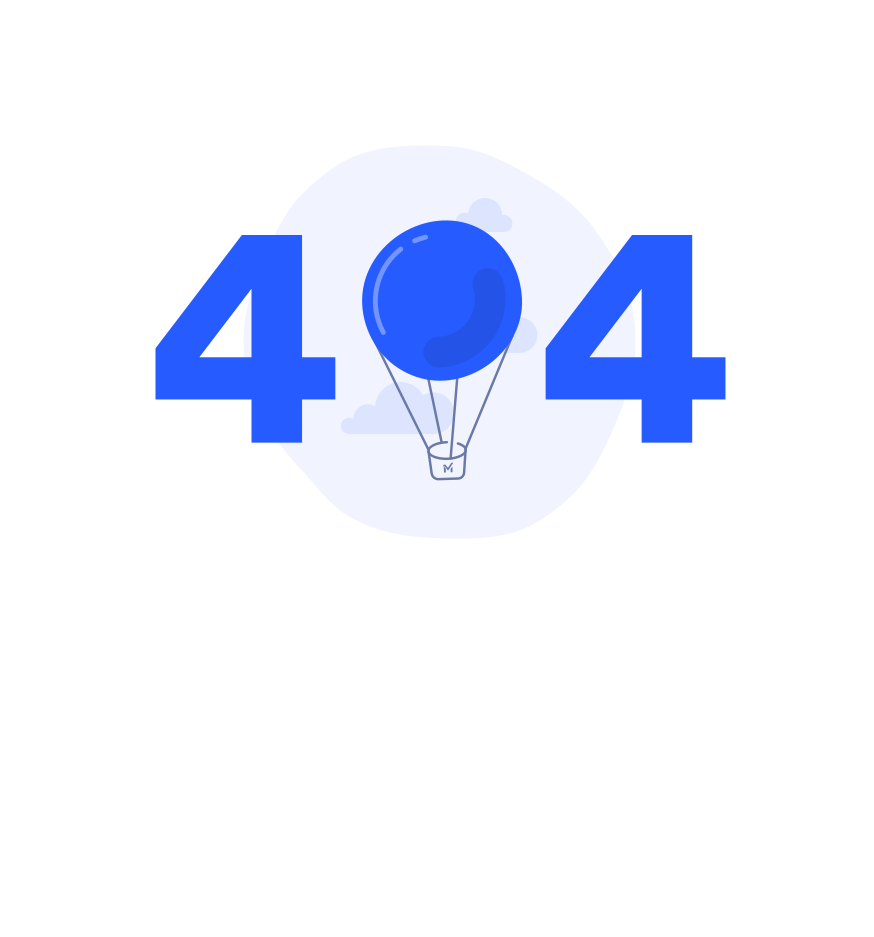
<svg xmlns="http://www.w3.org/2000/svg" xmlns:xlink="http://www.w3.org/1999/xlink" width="874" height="937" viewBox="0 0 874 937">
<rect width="100%" height="100%" fill="#ffffff"/>
<image xlink:href="image0.png" x="155" y="145" width="571" height="394"/>
</svg>
